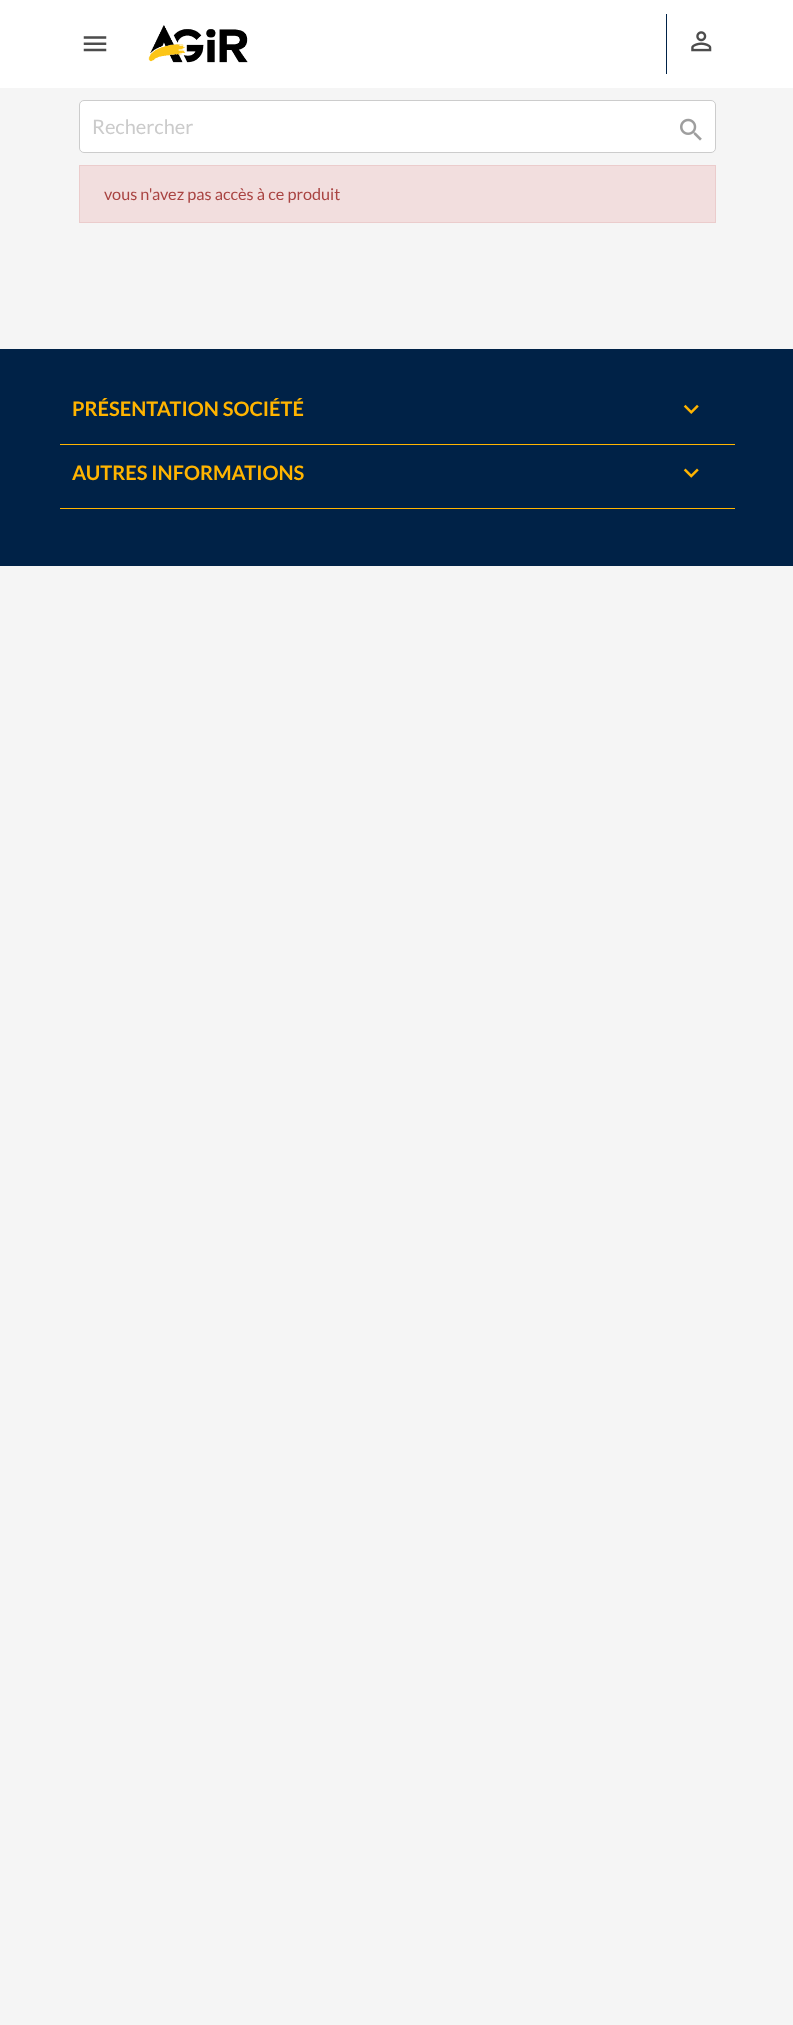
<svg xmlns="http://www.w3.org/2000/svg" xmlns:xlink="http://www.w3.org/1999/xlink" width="793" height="2025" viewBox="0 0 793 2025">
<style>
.cls-1{font:20px Lato;fill:#cbcbcb}
.cls-2{font:16.25px Lato;fill:#a94442}
.cls-3{font:bold 20px Lato;fill:#ffb400}
</style>
<rect width="100%" height="100%" fill="#f5f5f5"/>
<rect fill="#ffffff" x="0" y="0" width="793" height="88"/>
<image xlink:href="image0.png" x="83" y="36" width="24" height="16"/>
<image xlink:href="image1.png" x="148" y="25" width="100" height="38"/>
<rect fill="#002247" x="666" y="14" width="1" height="60"/>
<image xlink:href="image2.png" x="691" y="31" width="21" height="21"/>
<rect fill="#ffffff" stroke="#cccccc" x="79.5" y="100.5" width="636" height="52" rx="4.5"/>
<image xlink:href="image3.png" x="680" y="118" width="22" height="23"/>
<rect fill="#f2dede" stroke="#ebcccc" x="79.5" y="165.5" width="636" height="57"/>
<rect fill="#002247" x="0" y="349" width="793" height="217"/>
<rect fill="#ffb400" x="60" y="444" width="675" height="1"/>
<image xlink:href="image4.png" x="683" y="404" width="16" height="10"/>
<rect fill="#ffb400" x="60" y="508" width="675" height="1"/>
<image xlink:href="image5.png" x="683" y="468" width="16" height="10"/>
<text class="cls-1" x="92" y="134">Rechercher</text>
<text class="cls-2" x="104" y="200">vous n'avez pas accès à ce produit</text>
<text class="cls-3" x="72" y="416">PRÉSENTATION SOCIÉTÉ</text>
<text class="cls-3" x="72" y="480">AUTRES INFORMATIONS</text>
</svg>
